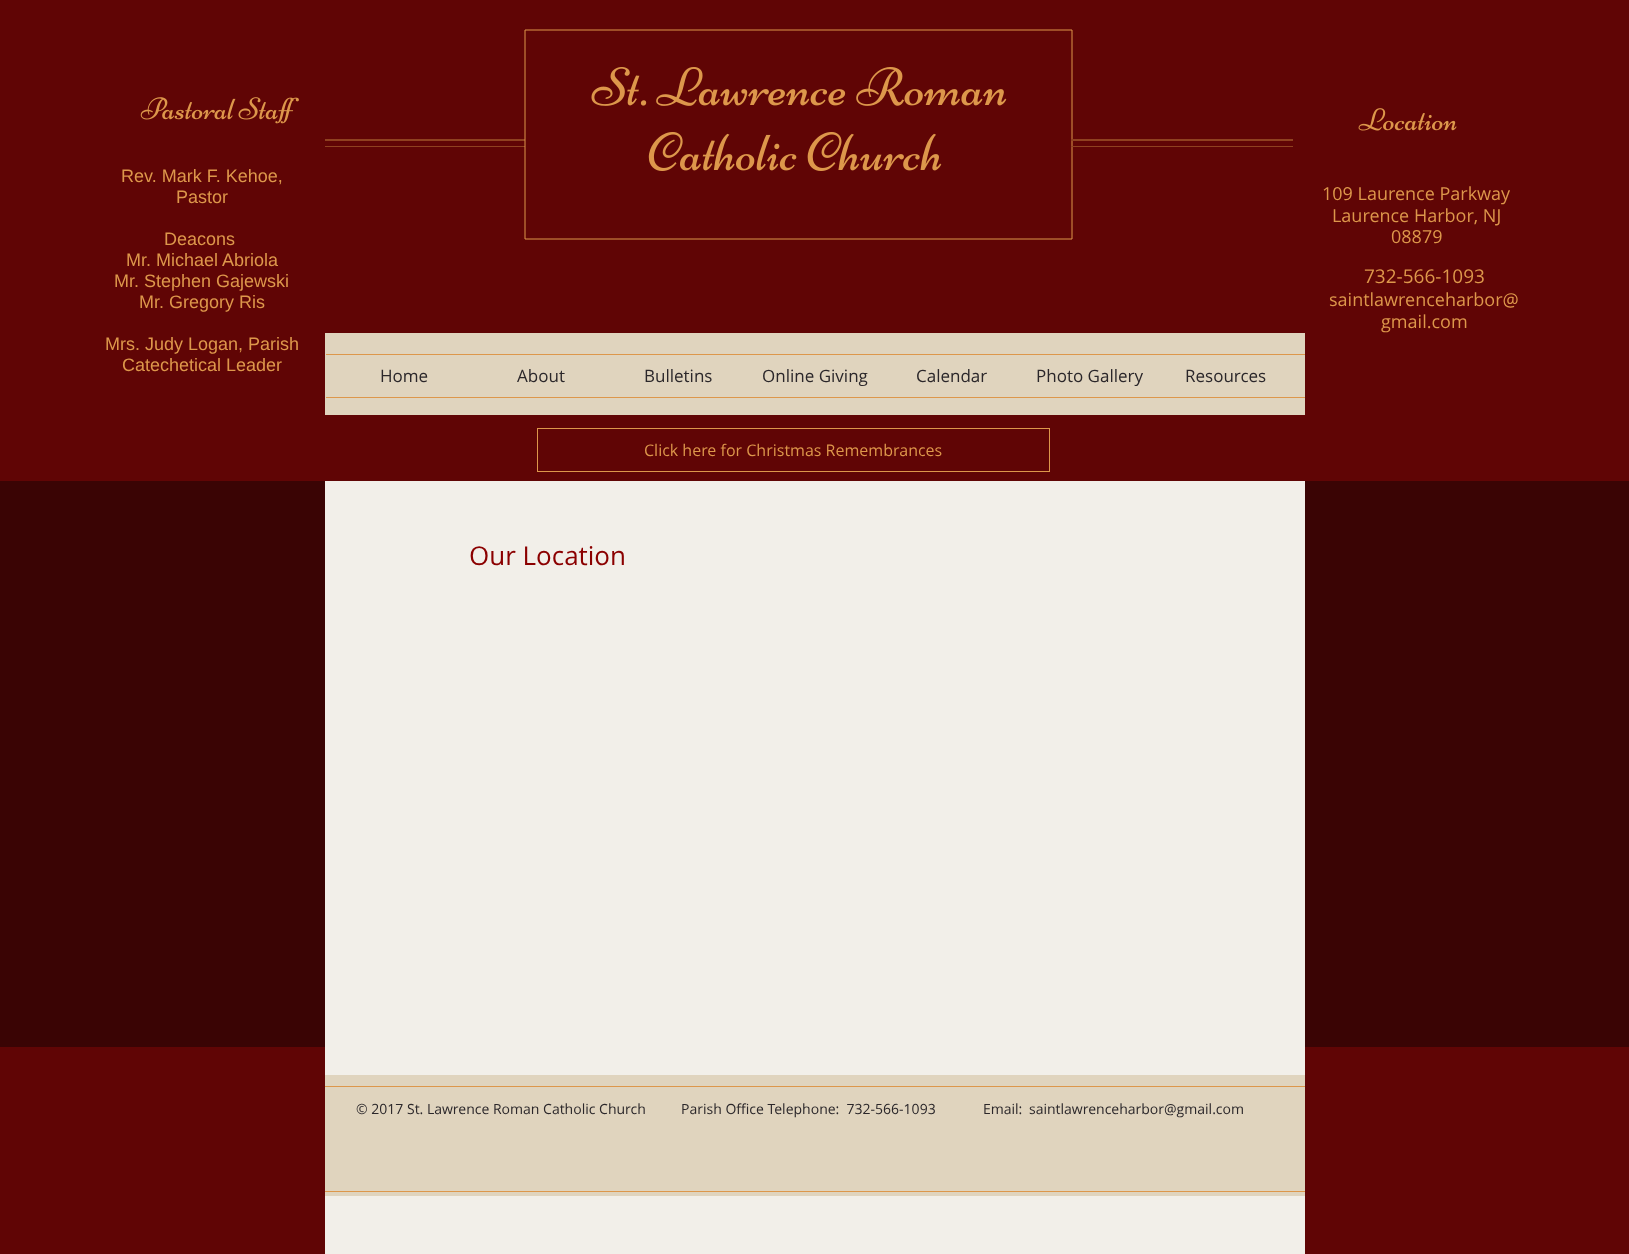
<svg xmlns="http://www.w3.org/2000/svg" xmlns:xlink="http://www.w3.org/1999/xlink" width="1629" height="1254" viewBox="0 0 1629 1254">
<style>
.cls-1{font:18px Liberation Sans;fill:#dd974b}
.cls-2{font:18px Open Sans;fill:#dd974b}
.cls-3{font:19px Open Sans;fill:#dd974b}
.cls-4{font:17px Open Sans;fill:#2b272a}
.cls-5{font:16px Open Sans;fill:#dd974b}
.cls-6{font:26px Open Sans;fill:#8b0000}
.cls-7{font:14px Open Sans;fill:#2b272a}
</style>
<rect width="100%" height="100%" fill="#3a0404"/>
<rect fill="#600505" x="0" y="0" width="1629" height="481"/>
<rect fill="#8f4120" x="325" y="139" width="200" height="2"/>
<rect fill="#8f4120" x="325" y="146" width="200" height="1"/>
<path fill="none" stroke="#dd974b" d="M1072 30V239H525V30Z"/>
<image xlink:href="image0.png" x="140" y="97" width="159" height="27"/>
<image xlink:href="image1.png" x="591" y="67" width="416" height="39"/>
<image xlink:href="image2.png" x="648" y="132" width="294" height="39"/>
<image xlink:href="image3.png" x="1358" y="108" width="99" height="23"/>
<rect fill="#8f4120" x="1071" y="139" width="222" height="2"/>
<rect fill="#8f4120" x="1071" y="146" width="222" height="1"/>
<rect fill="#e0d4be" x="325" y="333" width="980" height="82"/>
<rect fill="#dd974b" x="326" y="354" width="979" height="1"/>
<rect fill="#dd974b" x="326" y="397" width="979" height="1"/>
<rect fill="none" stroke="#dd974b" x="537.5" y="428.5" width="512" height="43"/>
<rect fill="#f2efe9" x="325" y="481" width="980" height="566"/>
<rect fill="#600505" x="0" y="1047" width="1629" height="207"/>
<rect fill="#f2efe9" x="325" y="1047" width="980" height="207"/>
<rect fill="#e0d4be" x="325" y="1075" width="980" height="121"/>
<rect fill="#dd974b" x="325" y="1086" width="980" height="1"/>
<rect fill="#dd974b" x="325" y="1191" width="980" height="1"/>
<text class="cls-1" x="121" y="182">Rev. Mark F. Kehoe,</text>
<text class="cls-1" x="176" y="203">Pastor</text>
<text class="cls-1" x="164" y="245">Deacons</text>
<text class="cls-1" x="126" y="266">Mr. Michael Abriola</text>
<text class="cls-1" x="114" y="287">Mr. Stephen Gajewski</text>
<text class="cls-1" x="139" y="308">Mr. Gregory Ris</text>
<text class="cls-1" x="105" y="350">Mrs. Judy Logan, Parish</text>
<text class="cls-1" x="122" y="371">Catechetical Leader</text>
<text class="cls-2" x="1322" y="200">109 Laurence Parkway</text>
<text class="cls-2" x="1332" y="222">Laurence Harbor, NJ</text>
<text class="cls-2" x="1391" y="243">08879</text>
<text class="cls-3" x="1364" y="283">732-566-1093</text>
<text class="cls-2" x="1329" y="306">saintlawrenceharbor@</text>
<text class="cls-2" x="1381" y="328">gmail.com</text>
<text class="cls-4" x="380" y="382">Home</text>
<text class="cls-4" x="517" y="382">About</text>
<text class="cls-4" x="644" y="382">Bulletins</text>
<text class="cls-4" x="762" y="382">Online Giving</text>
<text class="cls-4" x="916" y="382">Calendar</text>
<text class="cls-4" x="1036" y="382">Photo Gallery</text>
<text class="cls-4" x="1185" y="382">Resources</text>
<text class="cls-5" x="644" y="456">Click here for Christmas Remembrances</text>
<text class="cls-6" x="469" y="565">Our Location</text>
<text class="cls-7" x="356" y="1114">© 2017 St. Lawrence Roman Catholic Church</text>
<text class="cls-7" xml:space="preserve" x="681" y="1114">Parish Office Telephone:  732-566-1093             Email:</text>
<text class="cls-7" x="1029" y="1114">saintlawrenceharbor@gmail.com</text>
</svg>
